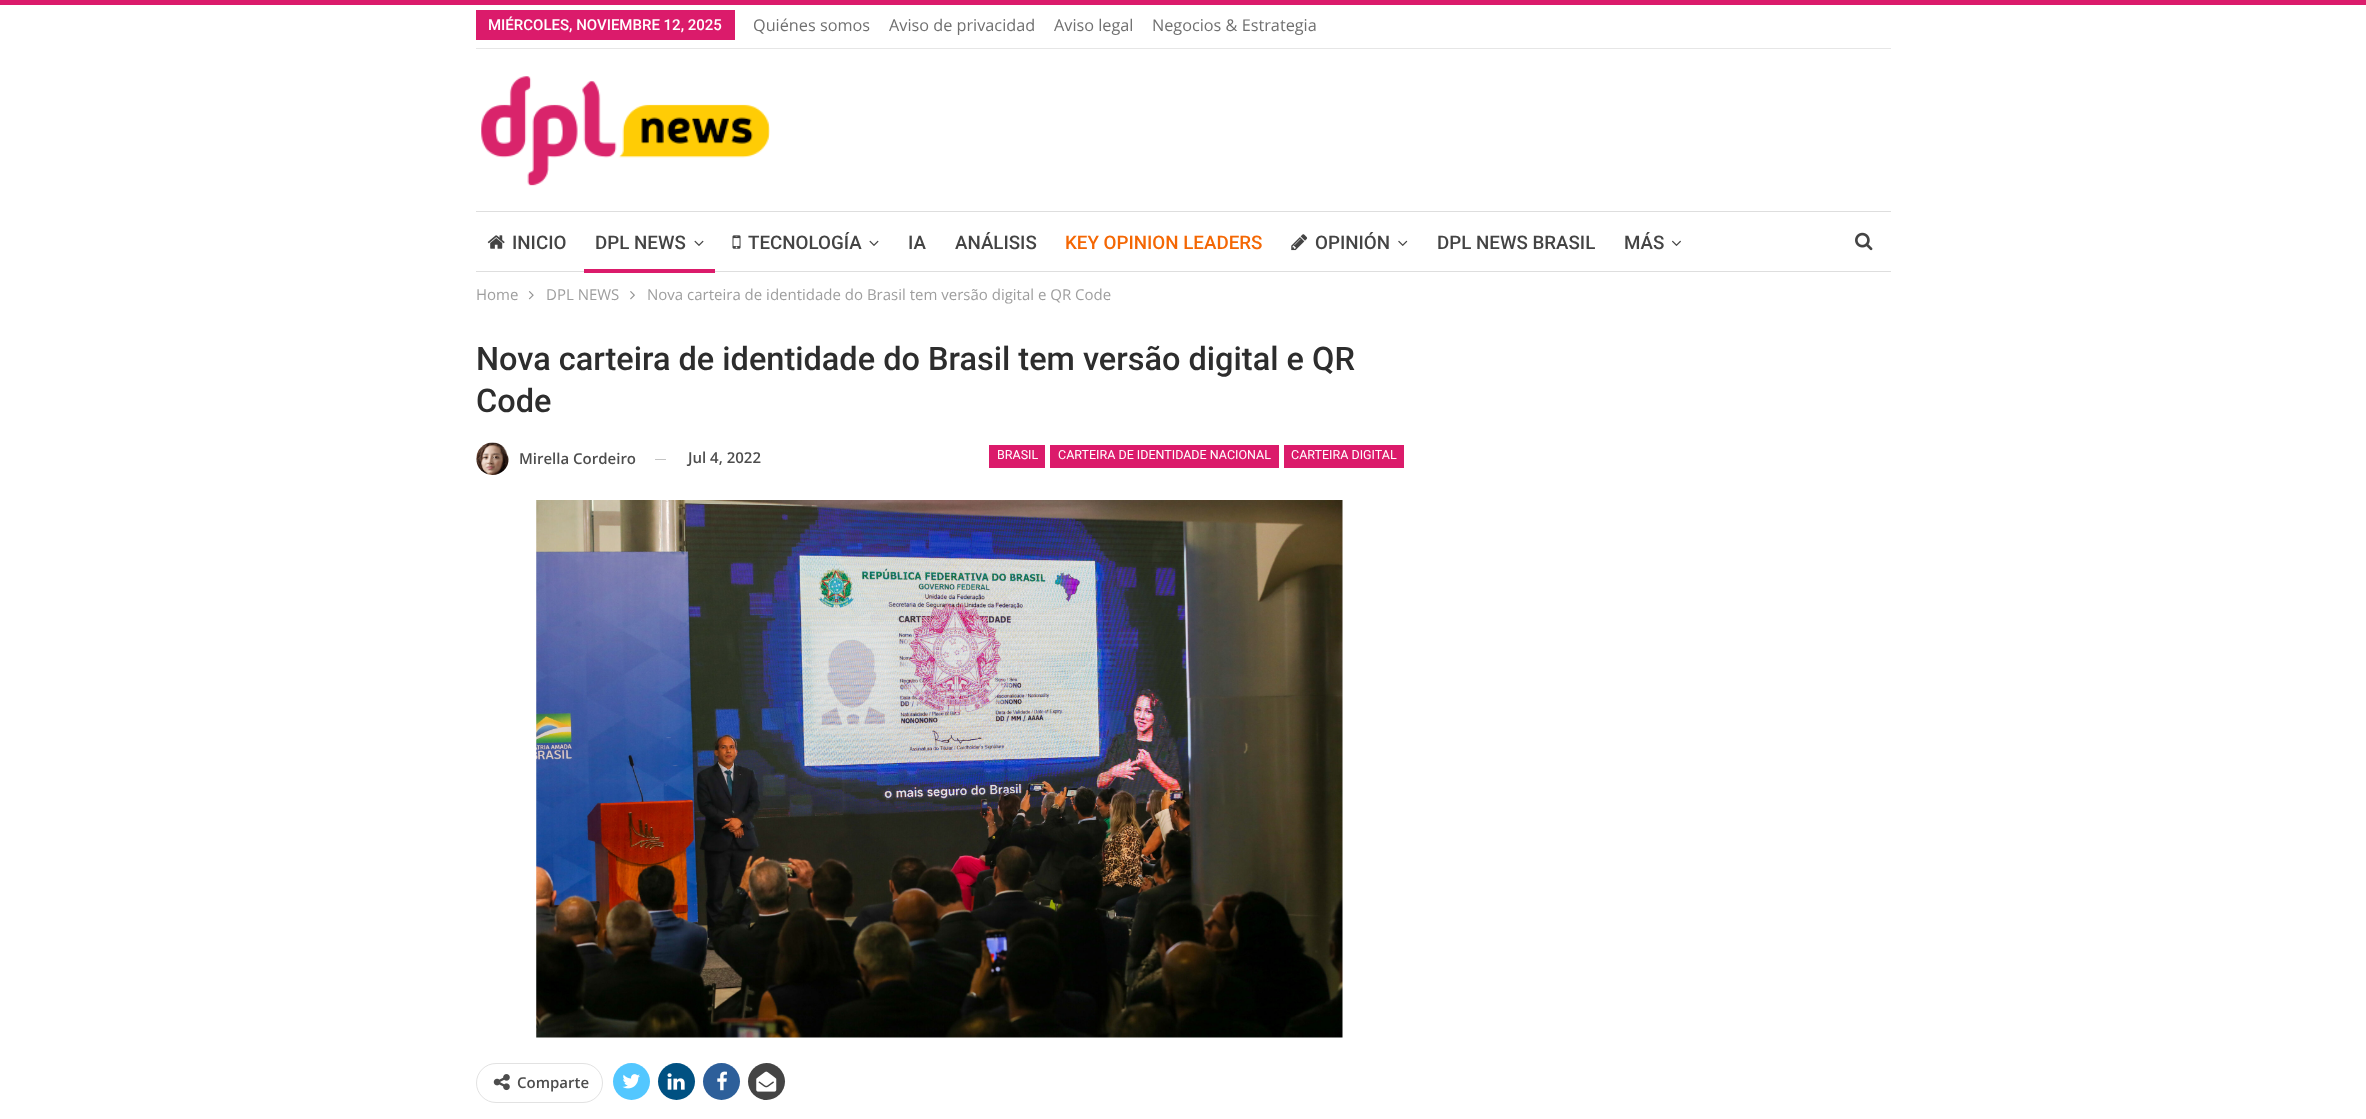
<svg xmlns="http://www.w3.org/2000/svg" xmlns:xlink="http://www.w3.org/1999/xlink" width="2366" height="1119" viewBox="0 0 2366 1119">
<style>
.cls-1{font:500 15px Roboto;fill:#ffffff}
.cls-2{font:16.25px Open Sans;fill:#707070}
.cls-3{font:500 18.75px Roboto;fill:#444444}
.cls-4{font:500 18.75px Roboto;fill:#f46704}
.cls-5{font:15px Open Sans;fill:#9e9e9e}
.cls-6{font:500 32.5px Roboto;fill:#2d2d2d}
.cls-7{font:600 15px Open Sans;fill:#4d4d4d}
.cls-8{font:12.5px Roboto;fill:#ffffff}
</style>
<rect width="100%" height="100%" fill="#ffffff"/>
<rect fill="#db1b6b" x="0" y="0" width="2366" height="5"/>
<rect fill="#e6e6e6" x="476" y="48" width="1415" height="1"/>
<rect fill="#db1b6b" x="476" y="10" width="259" height="30"/>
<image xlink:href="image0.png" x="481" y="76" width="289" height="110"/>
<rect fill="#dedede" x="476" y="211" width="1415" height="1"/>
<rect fill="#dedede" x="476" y="271" width="1415" height="1"/>
<image xlink:href="image1.png" x="487" y="235" width="18" height="14"/>
<image xlink:href="image2.png" x="694" y="240" width="10" height="6"/>
<rect fill="#db1b6b" x="584" y="269" width="131" height="4"/>
<image xlink:href="image3.png" x="732" y="235" width="9" height="14"/>
<image xlink:href="image2.png" x="869" y="240" width="10" height="6"/>
<image xlink:href="image4.png" x="1291" y="234" width="17" height="17"/>
<image xlink:href="image5.png" x="1398" y="240" width="10" height="6"/>
<image xlink:href="image6.png" x="1672" y="240" width="9" height="6"/>
<image xlink:href="image7.png" x="1855" y="232" width="18" height="19"/>
<image xlink:href="image8.png" x="528" y="291" width="6" height="9"/>
<image xlink:href="image9.png" x="630" y="291" width="5" height="9"/>
<image xlink:href="image10.png" x="476" y="442" width="33" height="33"/>
<rect fill="#c4c4c4" x="655" y="459" width="11" height="1"/>
<rect fill="#db1b6b" x="989" y="445" width="56" height="23"/>
<rect fill="#db1b6b" x="1050" y="445" width="229" height="23"/>
<rect fill="#db1b6b" x="1284" y="445" width="120" height="23"/>
<image xlink:href="image11.png" x="536" y="500" width="807" height="538"/>
<rect fill="none" stroke="#e2e2e2" x="476.5" y="1063.5" width="126" height="39" rx="19.5"/>
<image xlink:href="image12.png" x="493" y="1074" width="17" height="17"/>
<circle fill="#53c7ff" cx="631.5" cy="1081.5" r="18.5"/>
<image xlink:href="image13.png" x="622" y="1074" width="18" height="15"/>
<circle fill="#005182" cx="676.5" cy="1081.5" r="18.5"/>
<image xlink:href="image14.png" x="667" y="1073" width="18" height="17"/>
<circle fill="#2d5f9a" cx="721.5" cy="1081.5" r="18.5"/>
<image xlink:href="image15.png" x="717" y="1071" width="10" height="20"/>
<circle fill="#444444" cx="766.5" cy="1081.5" r="18.5"/>
<image xlink:href="image16.png" x="756" y="1071" width="21" height="21"/>
<text class="cls-1" x="488" y="30">MIÉRCOLES, NOVIEMBRE 12, 2025</text>
<text class="cls-2" x="753" y="31">Quiénes somos</text>
<text class="cls-2" x="889" y="31">Aviso de privacidad</text>
<text class="cls-2" x="1054" y="31">Aviso legal</text>
<text class="cls-2" x="1152" y="31">Negocios &amp; Estrategia</text>
<text class="cls-3" x="512" y="249">INICIO</text>
<text class="cls-3" x="595" y="249">DPL NEWS</text>
<text class="cls-3" x="748" y="249">TECNOLOGÍA</text>
<text class="cls-3" x="908" y="249">IA</text>
<text class="cls-3" x="955" y="249">ANÁLISIS</text>
<text class="cls-4" x="1065" y="249">KEY OPINION LEADERS</text>
<text class="cls-3" x="1315" y="249">OPINIÓN</text>
<text class="cls-3" x="1437" y="249">DPL NEWS BRASIL</text>
<text class="cls-3" x="1624" y="249">MÁS</text>
<text class="cls-5" x="476" y="300">Home</text>
<text class="cls-5" x="546" y="300">DPL NEWS</text>
<text class="cls-5" x="647" y="300">Nova carteira de identidade do Brasil tem versão digital e QR Code</text>
<text class="cls-6"><tspan x="476" y="370">Nova carteira de identidade do Brasil tem versão digital e QR</tspan><tspan x="476" y="412">Code</tspan></text>
<text class="cls-7" x="519" y="464">Mirella Cordeiro</text>
<text class="cls-7" x="688" y="463">Jul 4, 2022</text>
<text class="cls-8" x="997" y="459">BRASIL</text>
<text class="cls-8" x="1058" y="459">CARTEIRA DE IDENTIDADE NACIONAL</text>
<text class="cls-8" x="1291" y="459">CARTEIRA DIGITAL</text>
<text class="cls-7" x="517" y="1088">Comparte</text>
</svg>
